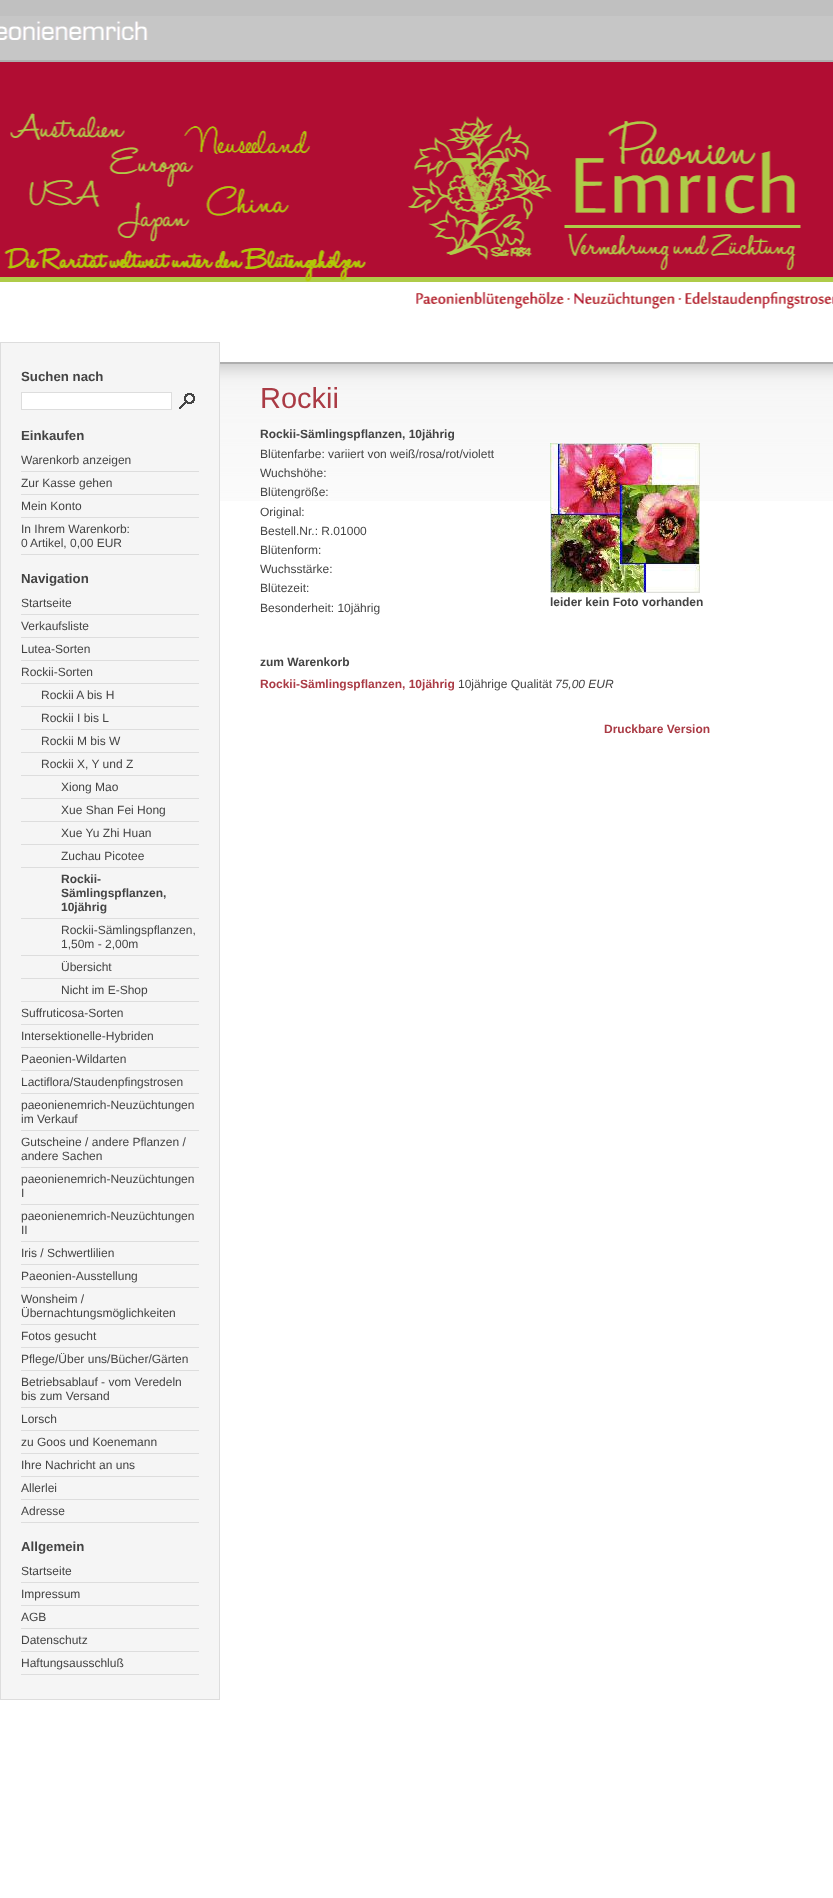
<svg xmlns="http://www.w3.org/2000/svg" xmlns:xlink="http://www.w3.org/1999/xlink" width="833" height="1898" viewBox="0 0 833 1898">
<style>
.cls-1{font:bold 13.25px Liberation Sans;fill:#444444}
.cls-2{font:12px Liberation Sans;fill:#444444}
.cls-3{font:bold 12px Liberation Sans;fill:#444444}
.cls-4{font:29px Liberation Sans;fill:#aa3b45}
.cls-5{font:bold 12px Liberation Sans;fill:#aa3b45}
.cls-6{font:italic 12px Liberation Sans;fill:#444444}
</style>
<rect width="100%" height="100%" fill="#ffffff"/>
<image xlink:href="image0.png" x="220" y="364" width="613" height="137"/>
<rect fill="#c0c0c0" x="0" y="0" width="833" height="16"/>
<image xlink:href="image1.png" x="0" y="16" width="833" height="44"/>
<image xlink:href="image2.png" x="0" y="62" width="833" height="300"/>
<rect fill="#aeaeae" x="0" y="60" width="833" height="2"/>
<rect fill="#aeaeae" x="220" y="362" width="613" height="2"/>
<rect fill="#f5f5f5" stroke="#dddddd" x="0.5" y="342.5" width="219" height="1357"/>
<rect fill="#ffffff" stroke="#dddddd" x="21.5" y="392.5" width="150" height="17"/>
<image xlink:href="image3.png" x="179" y="393" width="16" height="16"/>
<rect fill="#dddddd" x="21" y="471" width="178" height="1"/>
<rect fill="#dddddd" x="21" y="494" width="178" height="1"/>
<rect fill="#dddddd" x="21" y="517" width="178" height="1"/>
<rect fill="#dddddd" x="21" y="554" width="178" height="1"/>
<rect fill="#dddddd" x="21" y="614" width="178" height="1"/>
<rect fill="#dddddd" x="21" y="637" width="178" height="1"/>
<rect fill="#dddddd" x="21" y="660" width="178" height="1"/>
<rect fill="#dddddd" x="21" y="683" width="178" height="1"/>
<rect fill="#dddddd" x="21" y="706" width="178" height="1"/>
<rect fill="#dddddd" x="21" y="729" width="178" height="1"/>
<rect fill="#dddddd" x="21" y="752" width="178" height="1"/>
<rect fill="#dddddd" x="21" y="775" width="178" height="1"/>
<rect fill="#dddddd" x="21" y="798" width="178" height="1"/>
<rect fill="#dddddd" x="21" y="821" width="178" height="1"/>
<rect fill="#dddddd" x="21" y="844" width="178" height="1"/>
<rect fill="#dddddd" x="21" y="867" width="178" height="1"/>
<rect fill="#dddddd" x="21" y="918" width="178" height="1"/>
<rect fill="#dddddd" x="21" y="955" width="178" height="1"/>
<rect fill="#dddddd" x="21" y="978" width="178" height="1"/>
<rect fill="#dddddd" x="21" y="1001" width="178" height="1"/>
<rect fill="#dddddd" x="21" y="1024" width="178" height="1"/>
<rect fill="#dddddd" x="21" y="1047" width="178" height="1"/>
<rect fill="#dddddd" x="21" y="1070" width="178" height="1"/>
<rect fill="#dddddd" x="21" y="1093" width="178" height="1"/>
<rect fill="#dddddd" x="21" y="1130" width="178" height="1"/>
<rect fill="#dddddd" x="21" y="1167" width="178" height="1"/>
<rect fill="#dddddd" x="21" y="1204" width="178" height="1"/>
<rect fill="#dddddd" x="21" y="1241" width="178" height="1"/>
<rect fill="#dddddd" x="21" y="1264" width="178" height="1"/>
<rect fill="#dddddd" x="21" y="1287" width="178" height="1"/>
<rect fill="#dddddd" x="21" y="1324" width="178" height="1"/>
<rect fill="#dddddd" x="21" y="1347" width="178" height="1"/>
<rect fill="#dddddd" x="21" y="1370" width="178" height="1"/>
<rect fill="#dddddd" x="21" y="1407" width="178" height="1"/>
<rect fill="#dddddd" x="21" y="1430" width="178" height="1"/>
<rect fill="#dddddd" x="21" y="1453" width="178" height="1"/>
<rect fill="#dddddd" x="21" y="1476" width="178" height="1"/>
<rect fill="#dddddd" x="21" y="1499" width="178" height="1"/>
<rect fill="#dddddd" x="21" y="1522" width="178" height="1"/>
<rect fill="#dddddd" x="21" y="1582" width="178" height="1"/>
<rect fill="#dddddd" x="21" y="1605" width="178" height="1"/>
<rect fill="#dddddd" x="21" y="1628" width="178" height="1"/>
<rect fill="#dddddd" x="21" y="1651" width="178" height="1"/>
<rect fill="#dddddd" x="21" y="1674" width="178" height="1"/>
<image xlink:href="image4.png" x="550" y="443" width="150" height="150"/>
<text class="cls-1" x="21" y="381">Suchen nach</text>
<text class="cls-1" x="21" y="440">Einkaufen</text>
<text class="cls-2"><tspan x="21" y="464">Warenkorb anzeigen</tspan><tspan x="21" y="487">Zur Kasse gehen</tspan><tspan x="21" y="510">Mein Konto</tspan><tspan x="21" y="533">In Ihrem Warenkorb:</tspan><tspan x="21" y="547">0</tspan></text>
<text class="cls-2" x="30" y="547">Artikel, 0,00 EUR</text>
<text class="cls-1" x="21" y="583">Navigation</text>
<text class="cls-2"><tspan x="21" y="607">Startseite</tspan><tspan x="21" y="630">Verkaufsliste</tspan><tspan x="21" y="653">Lutea-Sorten</tspan><tspan x="21" y="676">Rockii-Sorten</tspan></text>
<text class="cls-2"><tspan x="41" y="699">Rockii A bis H</tspan><tspan x="41" y="722">Rockii I bis L</tspan><tspan x="41" y="745">Rockii M bis W</tspan><tspan x="41" y="768">Rockii X, Y und Z</tspan></text>
<text class="cls-2"><tspan x="61" y="791">Xiong Mao</tspan><tspan x="61" y="814">Xue Shan Fei Hong</tspan><tspan x="61" y="837">Xue Yu Zhi Huan</tspan><tspan x="61" y="860">Zuchau Picotee</tspan></text>
<text class="cls-3"><tspan x="61" y="883">Rockii-</tspan><tspan x="61" y="897">Sämlingspflanzen,</tspan><tspan x="61" y="911">10jährig</tspan></text>
<text class="cls-2"><tspan x="61" y="934">Rockii-Sämlingspflanzen,</tspan><tspan x="61" y="948">1,50m - 2,00m</tspan><tspan x="61" y="971">Übersicht</tspan><tspan x="61" y="994">Nicht im E-Shop</tspan></text>
<text class="cls-2"><tspan x="21" y="1017">Suffruticosa-Sorten</tspan><tspan x="21" y="1040">Intersektionelle-Hybriden</tspan><tspan x="21" y="1063">Paeonien-Wildarten</tspan><tspan x="21" y="1086">Lactiflora/Staudenpfingstrosen</tspan><tspan x="21" y="1109">paeonienemrich-Neuzüchtungen</tspan><tspan x="21" y="1123">im Verkauf</tspan><tspan x="21" y="1146">Gutscheine / andere Pflanzen /</tspan><tspan x="21" y="1160">andere Sachen</tspan><tspan x="21" y="1183">paeonienemrich-Neuzüchtungen</tspan><tspan x="21" y="1197">I</tspan><tspan x="21" y="1220">paeonienemrich-Neuzüchtungen</tspan><tspan x="21" y="1234">II</tspan><tspan x="21" y="1257">Iris / Schwertlilien</tspan><tspan x="21" y="1280">Paeonien-Ausstellung</tspan><tspan x="21" y="1303">Wonsheim /</tspan><tspan x="21" y="1317">Übernachtungsmöglichkeiten</tspan><tspan x="21" y="1340">Fotos gesucht</tspan><tspan x="21" y="1363">Pflege/Über uns/Bücher/Gärten</tspan><tspan x="21" y="1386">Betriebsablauf - vom Veredeln</tspan><tspan x="21" y="1400">bis zum Versand</tspan><tspan x="21" y="1423">Lorsch</tspan><tspan x="21" y="1446">zu Goos und Koenemann</tspan><tspan x="21" y="1469">Ihre Nachricht an uns</tspan><tspan x="21" y="1492">Allerlei</tspan><tspan x="21" y="1515">Adresse</tspan></text>
<text class="cls-1" x="21" y="1551">Allgemein</text>
<text class="cls-2"><tspan x="21" y="1575">Startseite</tspan><tspan x="21" y="1598">Impressum</tspan><tspan x="21" y="1621">AGB</tspan><tspan x="21" y="1644">Datenschutz</tspan><tspan x="21" y="1667">Haftungsausschluß</tspan></text>
<text class="cls-4" x="260" y="408">Rockii</text>
<text class="cls-3" x="260" y="438">Rockii-Sämlingspflanzen, 10jährig</text>
<text class="cls-2"><tspan x="260" y="458">Blütenfarbe: variiert von weiß/rosa/rot/violett</tspan><tspan x="260" y="477">Wuchshöhe:</tspan><tspan x="260" y="496">Blütengröße:</tspan><tspan x="260" y="516">Original:</tspan><tspan x="260" y="535">Bestell.Nr.: R.01000</tspan><tspan x="260" y="554">Blütenform:</tspan><tspan x="260" y="573">Wuchsstärke:</tspan><tspan x="260" y="592">Blütezeit:</tspan><tspan x="260" y="612">Besonderheit: 10jährig</tspan></text>
<text class="cls-3" x="550" y="606">leider kein Foto vorhanden</text>
<text class="cls-3" x="260" y="666">zum Warenkorb</text>
<text class="cls-5" x="260" y="688">Rockii-Sämlingspflanzen, 10jährig</text>
<text class="cls-2" x="458" y="688">10jährige Qualität</text>
<text class="cls-6" x="555" y="688">75,00 EUR</text>
<text class="cls-5" x="604" y="733">Druckbare Version</text>
</svg>
